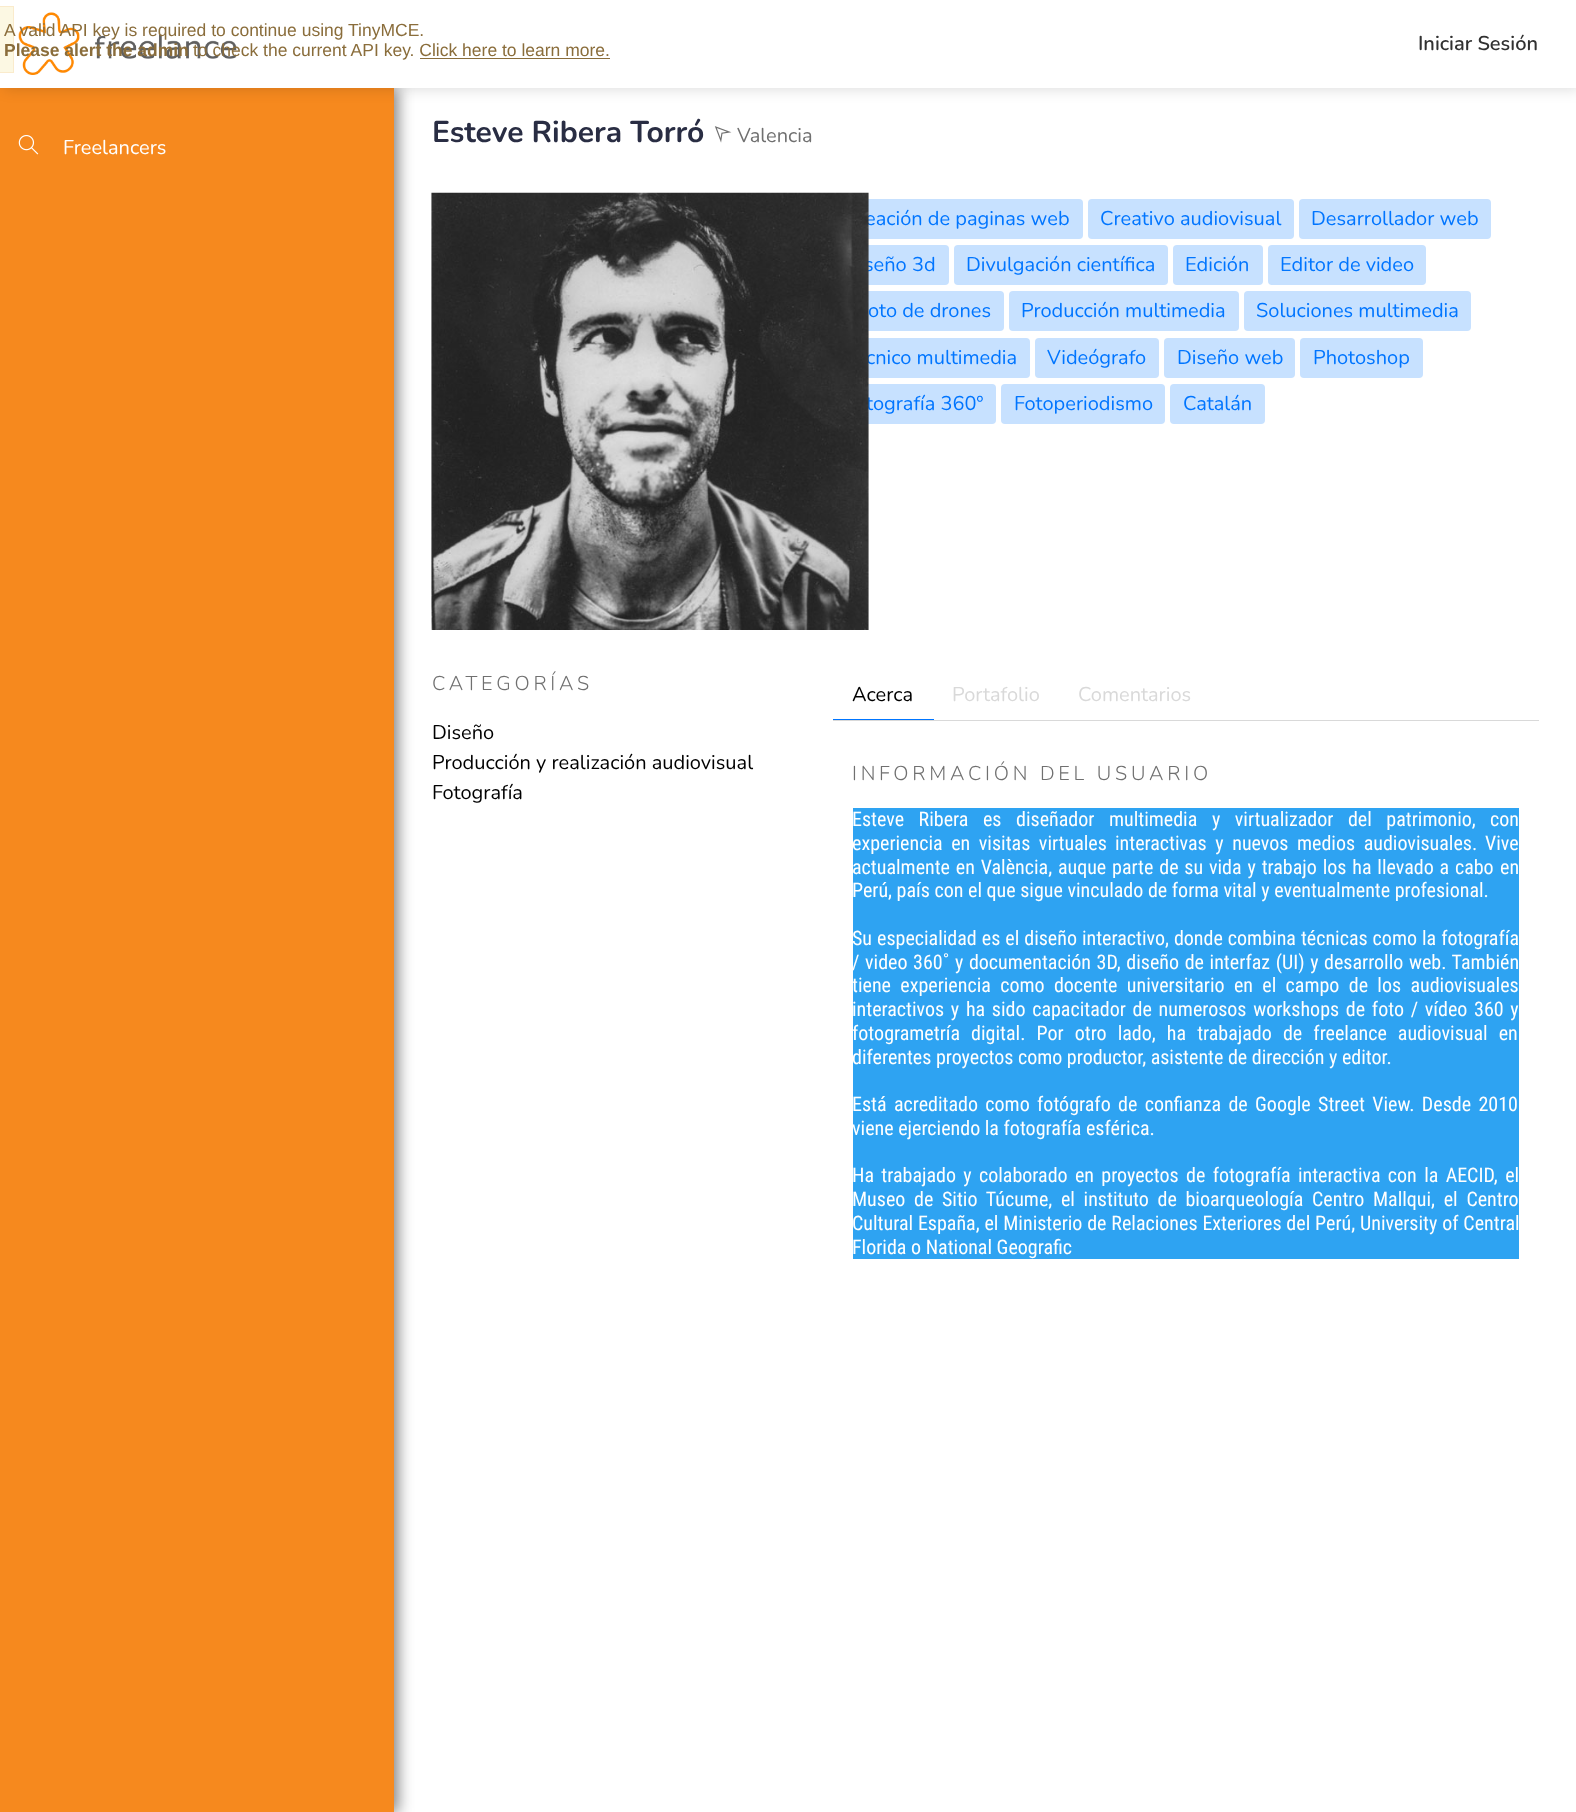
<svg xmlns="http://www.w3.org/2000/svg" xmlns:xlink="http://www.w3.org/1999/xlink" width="1576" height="1812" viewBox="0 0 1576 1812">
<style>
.cls-1{font:17.5px Liberation Sans;fill:#8a6d3b}
.cls-2{font:bold 17.5px Liberation Sans;fill:#8a6d3b}
.cls-3{font:600 20px Nunito;fill:#313131}
.cls-4{font:20px Nunito;fill:#ffffff}
.cls-5{font:bold 30px Nunito;fill:#292d43}
.cls-6{font:20px Nunito;fill:#707070}
.cls-7{font:20px Nunito;fill:#0075ff}
.cls-8{font:300 20px Nunito;letter-spacing:3.75px;fill:#707070}
.cls-9{font:20px Nunito;fill:#000000}
.cls-10{font:20px Nunito;fill:#d9d9d9}
.cls-11{font:20px Roboto Condensed;fill:#ffffff}
</style>
<rect width="100%" height="100%" fill="#ffffff"/>
<rect fill="#000000" fill-opacity="0.5" filter="blur(7.5px)" x="4" y="88" width="394" height="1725"/>
<rect fill="#f6891e" x="0" y="88" width="394" height="1724"/>
<rect fill="#000000" fill-opacity="0.16" filter="blur(7.5px)" x="4" y="0" width="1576" height="88"/>
<rect fill="#ffffff" x="0" y="0" width="1576" height="88"/>
<rect fill="#fcf8e3" stroke="#faebcc" x="-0.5" y="6.5" width="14" height="66"/>
<rect fill="#8a6d3b" x="420" y="58" width="190" height="1"/>
<image xlink:href="image0.png" x="18" y="12" width="219" height="63"/>
<image xlink:href="image1.png" x="18" y="135" width="21" height="20"/>
<image xlink:href="image2.png" x="714" y="126" width="18" height="17"/>
<rect fill="#c7e1ff" x="833" y="199" width="250" height="40" rx="4"/>
<rect fill="#c7e1ff" x="1088" y="199" width="206" height="40" rx="4"/>
<rect fill="#c7e1ff" x="1299" y="199" width="192" height="40" rx="4"/>
<rect fill="#c7e1ff" x="833" y="245" width="116" height="40" rx="4"/>
<rect fill="#c7e1ff" x="954" y="245" width="214" height="40" rx="4"/>
<rect fill="#c7e1ff" x="1173" y="245" width="90" height="40" rx="4"/>
<rect fill="#c7e1ff" x="1268" y="245" width="158" height="40" rx="4"/>
<rect fill="#c7e1ff" x="833" y="291" width="171" height="40" rx="4"/>
<rect fill="#c7e1ff" x="1009" y="291" width="230" height="40" rx="4"/>
<rect fill="#c7e1ff" x="1244" y="291" width="227" height="40" rx="4"/>
<rect fill="#c7e1ff" x="833" y="338" width="197" height="40" rx="4"/>
<rect fill="#c7e1ff" x="1035" y="338" width="124" height="40" rx="4"/>
<rect fill="#c7e1ff" x="1164" y="338" width="131" height="40" rx="4"/>
<rect fill="#c7e1ff" x="1300" y="338" width="123" height="40" rx="4"/>
<rect fill="#c7e1ff" x="833" y="384" width="163" height="40" rx="4"/>
<rect fill="#c7e1ff" x="1001" y="384" width="164" height="40" rx="4"/>
<rect fill="#c7e1ff" x="1170" y="384" width="95" height="40" rx="4"/>
<rect fill="#d9d9d9" x="833" y="720" width="706" height="1"/>
<rect fill="#0075ff" x="833" y="719" width="101" height="1"/>
<rect fill="#2ea3f2" x="853" y="808" width="666" height="451"/>
<text class="cls-1" x="4" y="36">A valid API key is required to continue using TinyMCE.</text>
<text class="cls-2" x="4" y="56">Please alert the admin</text>
<text class="cls-1" x="193" y="56">to check the current API key. Click here to learn more.</text>
<text class="cls-3" x="1418" y="50">Iniciar Sesión</text>
<text class="cls-4" x="63" y="154">Freelancers</text>
<text class="cls-5" x="432" y="142">Esteve Ribera Torró</text>
<text class="cls-6" x="737" y="142">Valencia</text>
<text class="cls-7" x="865" y="225">eación de paginas web</text>
<text class="cls-7" x="1100" y="225">Creativo audiovisual</text>
<text class="cls-7" x="1311" y="225">Desarrollador web</text>
<text class="cls-7" x="864" y="271">seño 3d</text>
<text class="cls-7" x="966" y="271">Divulgación científica</text>
<text class="cls-7" x="1185" y="271">Edición</text>
<text class="cls-7" x="1280" y="271">Editor de video</text>
<text class="cls-7" x="868" y="317">oto de drones</text>
<text class="cls-7" x="1021" y="317">Producción multimedia</text>
<text class="cls-7" x="1256" y="317">Soluciones multimedia</text>
<text class="cls-7" x="866" y="364">cnico multimedia</text>
<text class="cls-7" x="1047" y="364">Videógrafo</text>
<text class="cls-7" x="1177" y="364">Diseño web</text>
<text class="cls-7" x="1313" y="364">Photoshop</text>
<text class="cls-7" x="866" y="410">tografía 360º</text>
<image xlink:href="image3.png" x="431" y="192" width="438" height="438"/>
<text class="cls-7" x="1014" y="410">Fotoperiodismo</text>
<text class="cls-7" x="1183" y="410">Catalán</text>
<text class="cls-8" x="432" y="690">CATEGORÍAS</text>
<text class="cls-9"><tspan x="432" y="739">Diseño</tspan><tspan x="432" y="769">Producción y realización audiovisual</tspan><tspan x="432" y="799">Fotografía</tspan></text>
<text class="cls-9" x="852" y="701">Acerca</text>
<text class="cls-10" x="952" y="701">Portafolio</text>
<text class="cls-10" x="1078" y="701">Comentarios</text>
<text class="cls-8" x="852" y="780">INFORMACIÓN DEL USUARIO</text>
<text class="cls-11" x="852" y="826" word-spacing="10">Esteve Ribera es diseñador multimedia y virtualizador del patrimonio,</text>
<text class="cls-11" x="1490" y="826">con</text>
<text class="cls-11" x="852" y="850" word-spacing="4">experiencia en visitas virtuales</text>
<text class="cls-11" x="1115" y="850" word-spacing="4">interactivas y nuevos medios audiovisuales.</text>
<text class="cls-11" x="1485" y="850">Vive</text>
<text class="cls-11" x="852" y="874" word-spacing="1.25">actualmente en València, auque parte de su vida y trabajo los ha llevado a cabo</text>
<text class="cls-11" x="1500" y="874">en</text>
<text class="cls-11" x="852" y="897">Perú, país con el que sigue vinculado de forma vital y eventualmente profesional.</text>
<text class="cls-11"><tspan x="852" y="945" word-spacing="0.4">Su especialidad es el diseño interactivo, donde combina técnicas como la fotografía</tspan><tspan x="852" y="969" word-spacing="1">/ video 360˚ y documentación 3D, diseño de interfaz (UI) y desarrollo web. También</tspan><tspan x="852" y="992" word-spacing="4.75">tiene experiencia como docente universitario en el campo de los audiovisuales</tspan><tspan x="852" y="1016" word-spacing="2.1">interactivos y ha sido capacitador de numerosos workshops de foto / vídeo 360 y</tspan><tspan x="852" y="1040" word-spacing="6.5">fotogrametría digital. Por otro lado, ha trabajado de freelance audiovisual en</tspan><tspan x="852" y="1064">diferentes proyectos como productor, asistente de dirección y editor.</tspan></text>
<text class="cls-11"><tspan x="852" y="1111" word-spacing="2.75">Está acreditado como fotógrafo de confianza de Google Street View. Desde 2010</tspan><tspan x="852" y="1135">viene ejerciendo la fotografía esférica.</tspan></text>
<text class="cls-11"><tspan x="852" y="1182" word-spacing="2.75">Ha trabajado y colaborado en proyectos de fotografía interactiva con la AECID, el</tspan><tspan x="852" y="1206" word-spacing="4.1">Museo de Sitio Túcume, el instituto de bioarqueología Centro Mallqui, el Centro</tspan><tspan x="852" y="1230" word-spacing="0.25">Cultural España, el Ministerio de Relaciones Exteriores del Perú, University of Central</tspan><tspan x="852" y="1254">Florida o National Geografic</tspan></text>
</svg>
